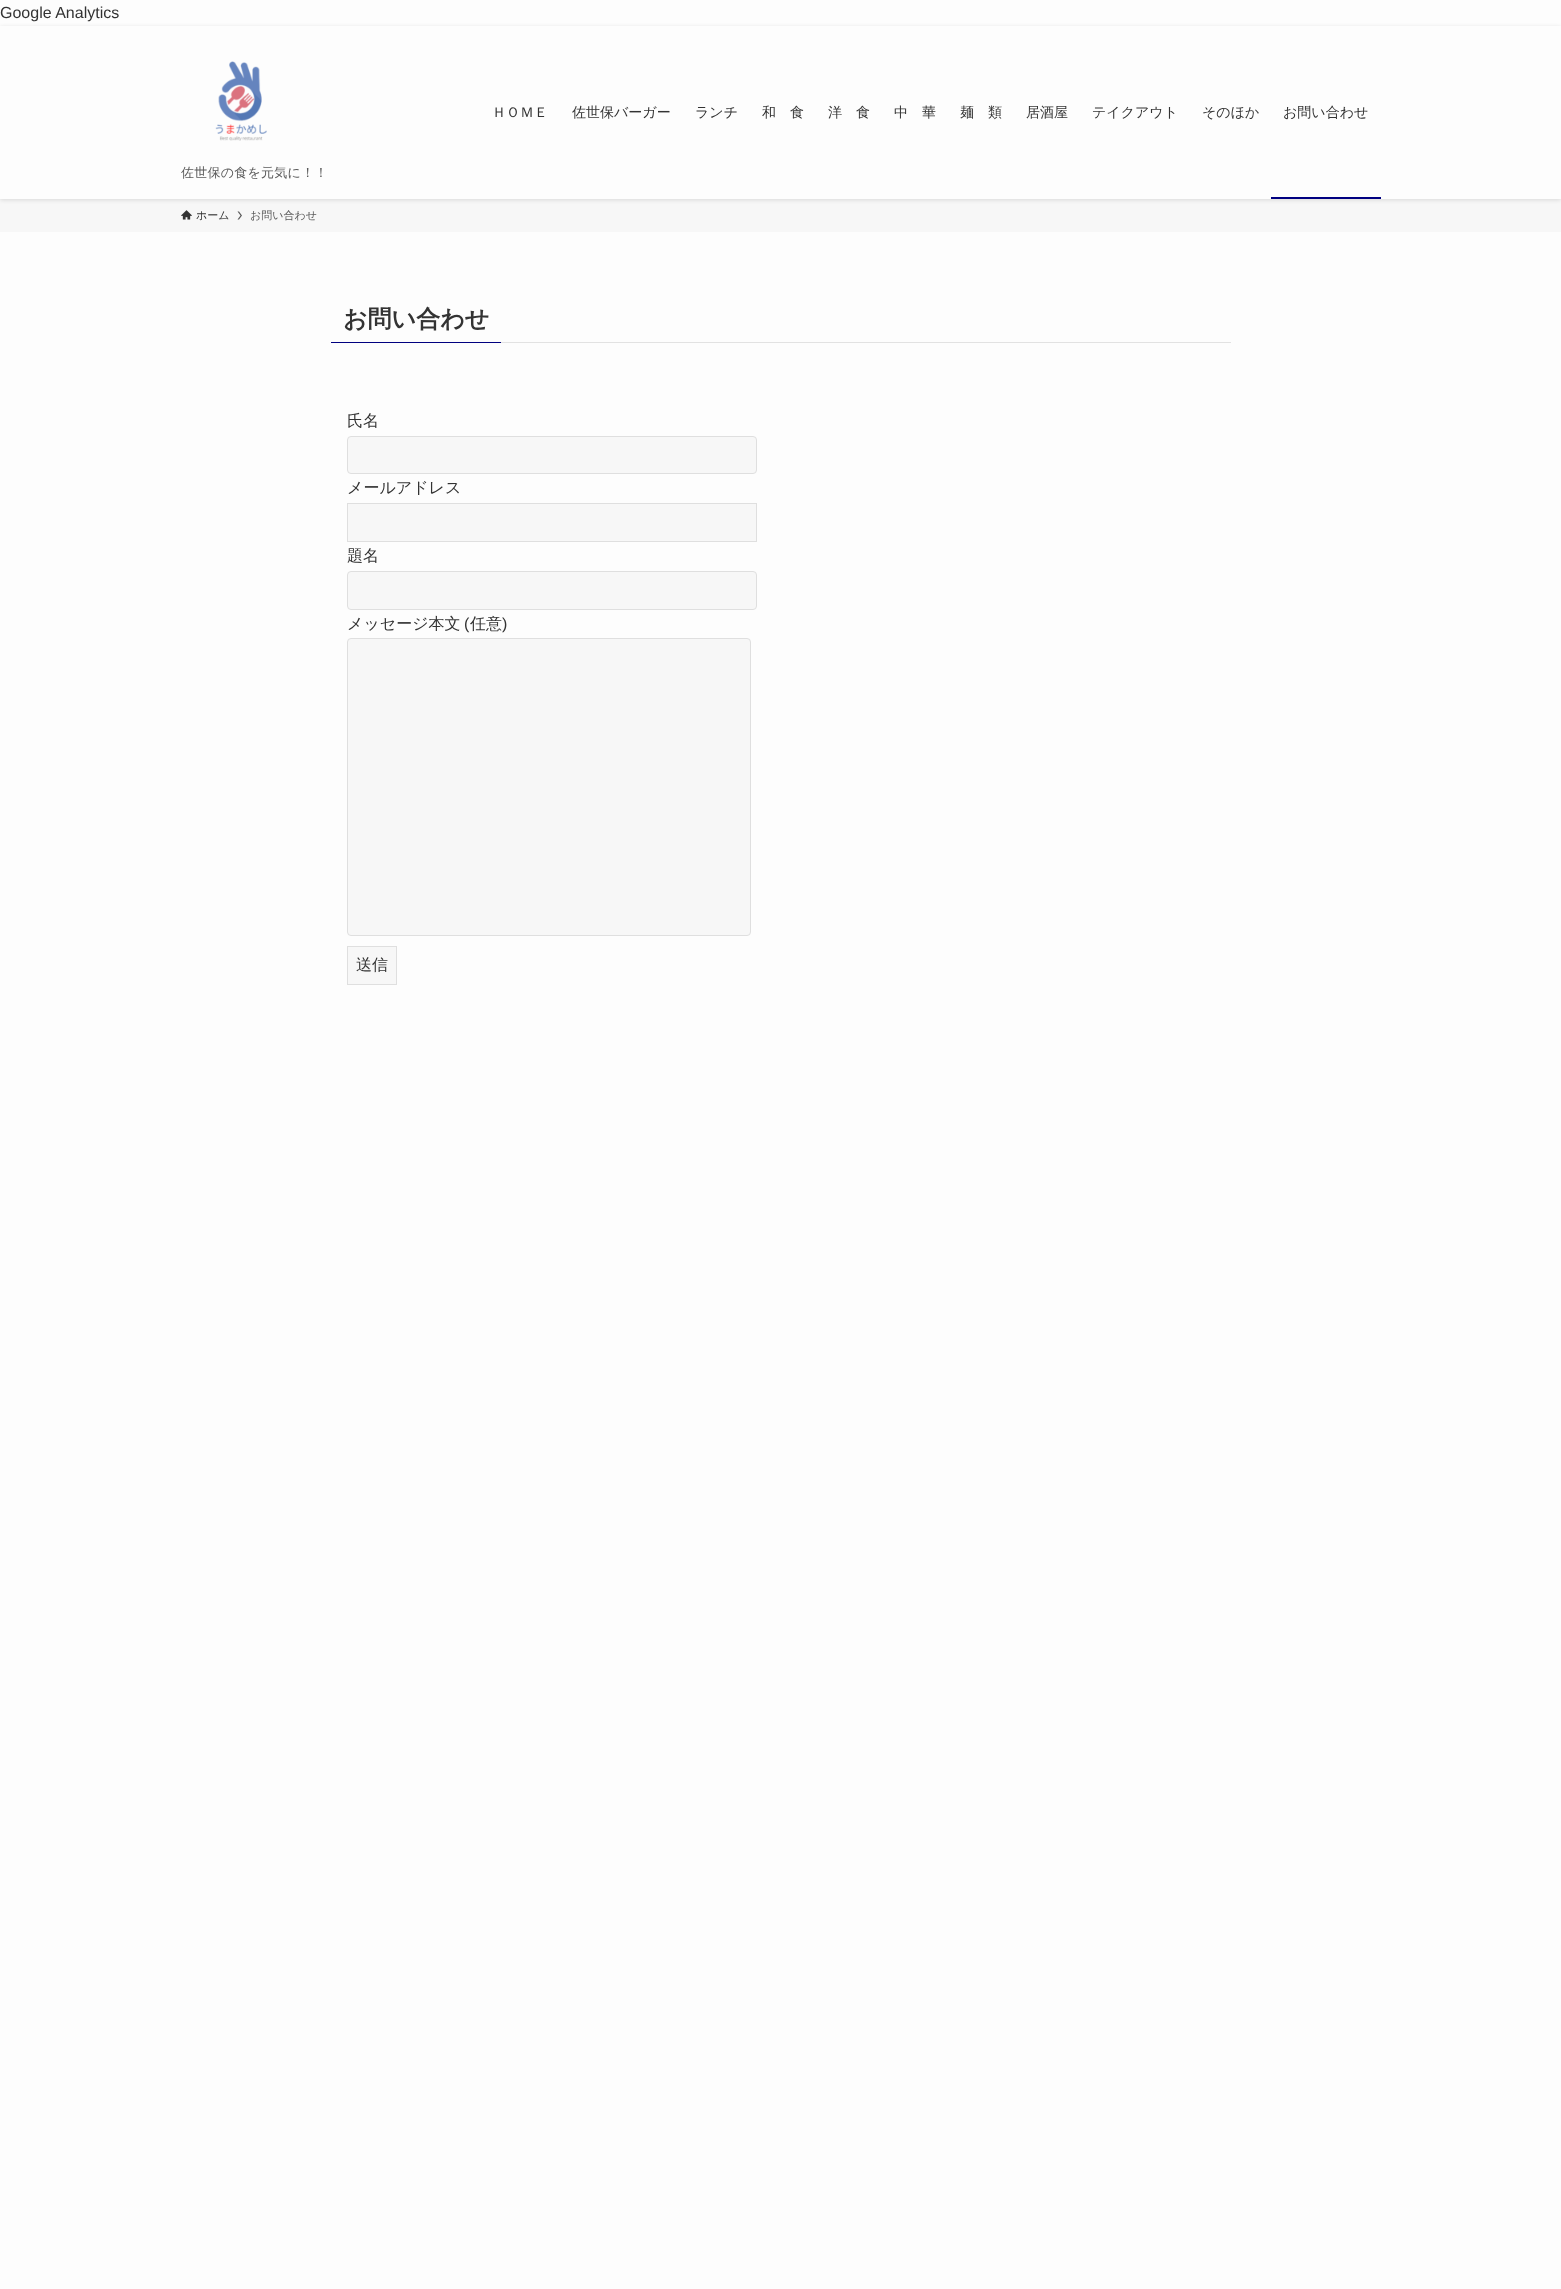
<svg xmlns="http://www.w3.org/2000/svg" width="1561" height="2289">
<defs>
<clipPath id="clip1"><path d="M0 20h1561v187h-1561zm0 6h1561v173h-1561z" clip-rule="evenodd"/></clipPath>
</defs>
<rect width="100%" height="100%" fill="#fdfdfd"/>
<text x="0" y="18" style="font-family:Liberation Sans;font-size:16px;fill:#333">Google Analytics</text>
<rect y="199" width="1561" height="33" fill="#f7f7f7"/>
<g clip-path="url(#clip1)">
<rect y="27" width="1561" height="173" fill="#0000001f" filter="blur(2px)"/>
</g>
<text x="492" y="117" style="font-family:WenQuanYi Zen Hei;font-size:14px;font-weight:500;fill:#333">ＨＯＭＥ</text>
<text x="572" y="117" style="font-family:WenQuanYi Zen Hei;font-size:14px;font-weight:500;fill:#333">佐世保バーガー</text>
<text x="695" y="117" style="font-family:WenQuanYi Zen Hei;font-size:14px;font-weight:500;fill:#333">ランチ</text>
<text x="762" y="117" style="font-family:WenQuanYi Zen Hei;font-size:14px;font-weight:500;fill:#333">和　食</text>
<text x="828" y="117" style="font-family:WenQuanYi Zen Hei;font-size:14px;font-weight:500;fill:#333">洋　食</text>
<text x="894" y="117" style="font-family:WenQuanYi Zen Hei;font-size:14px;font-weight:500;fill:#333">中　華</text>
<text x="960" y="117" style="font-family:WenQuanYi Zen Hei;font-size:14px;font-weight:500;fill:#333">麺　類</text>
<text x="1026" y="117" style="font-family:WenQuanYi Zen Hei;font-size:14px;font-weight:500;fill:#333">居酒屋</text>
<text x="1092" y="117" style="font-family:WenQuanYi Zen Hei;font-size:14px;font-weight:500;fill:#333">テイクアウト</text>
<text x="1202" y="117" style="font-family:WenQuanYi Zen Hei;font-size:14px;font-weight:500;fill:#333">そのほか</text>
<text x="1283" y="117" style="font-family:WenQuanYi Zen Hei;font-size:14px;font-weight:500;fill:#333">お問い合わせ</text>
<rect x="1271" y="197" width="110" height="2" fill="#000080"/>
<image x="215" y="61" width="52" height="80" href="media/1.png"/>
<text x="181" y="177" style="font-family:WenQuanYi Zen Hei;font-size:13px;font-weight:500;letter-spacing:0.25px;fill:#5a5a5a">佐世保の食を元気に！！</text>
<image x="181" y="210" width="11" height="10" href="media/2.png"/>
<text x="196" y="219" style="font-family:WenQuanYi Zen Hei;font-size:11px;font-weight:500;fill:#333">ホーム</text>
<path d="M239 211.5h-1.5l3 4l-3 4h1.5l3-4z" fill="#5a5a5a"/>
<text x="250" y="219" style="font-family:WenQuanYi Zen Hei;font-size:11px;font-weight:500;fill:#5a5a5a">お問い合わせ</text>
<rect x="501" y="342" width="730" height="1" fill="#e2e2e2"/>
<rect x="331" y="342" width="170" height="1" fill="#000080"/>
<text x="343" y="327" style="font-family:WenQuanYi Zen Hei;font-size:24px;font-weight:bold;fill:#333">お問い合わせ</text>
<text x="347" y="426" style="font-family:WenQuanYi Zen Hei;font-size:16px;font-weight:500;fill:#333">氏名</text>
<rect x="347.5" y="436.5" width="409" height="37" rx="3.5" fill="#f7f7f7" stroke="#dfdfdf"/>
<text x="347" y="493" style="font-family:WenQuanYi Zen Hei;font-size:16px;font-weight:500;fill:#333">メールアドレス</text>
<rect x="347.5" y="503.5" width="409" height="38" fill="#f7f7f7" stroke="#dfdfdf"/>
<text x="347" y="561" style="font-family:WenQuanYi Zen Hei;font-size:16px;font-weight:500;fill:#333">題名</text>
<rect x="347.5" y="571.5" width="409" height="38" rx="3.5" fill="#f7f7f7" stroke="#dfdfdf"/>
<text x="347" y="629" style="font-family:WenQuanYi Zen Hei;font-size:16px;font-weight:500;fill:#333">メッセージ本文</text>
<text x="464" y="629" style="font-family:Liberation Sans;font-size:16px;fill:#333">(</text>
<text x="470" y="629" style="font-family:WenQuanYi Zen Hei;font-size:16px;font-weight:500;fill:#333">任意</text>
<text x="502" y="629" style="font-family:Liberation Sans;font-size:16px;fill:#333">)</text>
<rect x="347.5" y="638.5" width="403" height="297" rx="3.5" fill="#f7f7f7" stroke="#dfdfdf"/>
<rect x="347.5" y="946.5" width="49" height="38" fill="#f7f7f7" stroke="#dfdfdf"/>
<text x="356" y="970" style="font-family:WenQuanYi Zen Hei;font-size:16px;font-weight:500;fill:#333">送信</text>
</svg>
